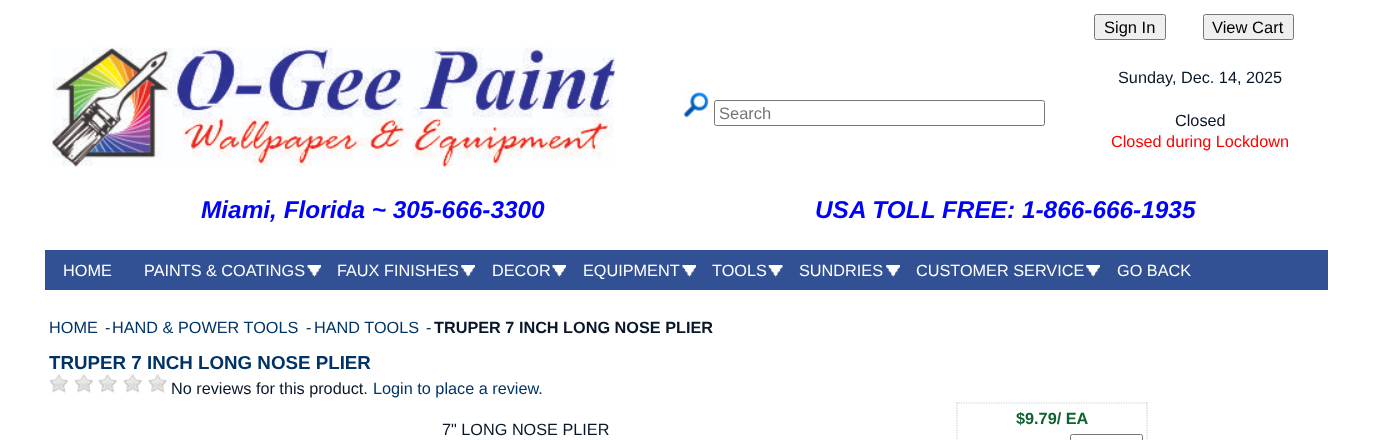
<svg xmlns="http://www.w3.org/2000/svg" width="1377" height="440">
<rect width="100%" height="100%" fill="#fff"/>
<rect x="1094.5" y="14.5" width="71" height="25" rx="2" fill="#efefef" stroke="#767676"/>
<text x="1104" y="33" style="font-family:Liberation Sans;font-size:16.5px;fill:#000">Sign In</text>
<rect x="1203.5" y="14.5" width="90" height="25" rx="2" fill="#efefef" stroke="#767676"/>
<text x="1212" y="33" style="font-family:Liberation Sans;font-size:16.5px;fill:#000">View Cart</text>
<image x="52" y="47" width="563" height="120" href="media/1.png"/>
<image x="683" y="92" width="26" height="26" href="media/2.png"/>
<rect x="714.5" y="100.5" width="330" height="25" rx="2" fill="none" stroke="#767676"/>
<text x="719" y="119" style="font-family:Liberation Sans;font-size:16.5px;fill:#757575">Search</text>
<text x="1118" y="83" style="font-family:Liberation Sans;font-size:16.25px;fill:#081829">Sunday, Dec. 14, 2025</text>
<text x="1175" y="126" style="font-family:Liberation Sans;font-size:16.25px;fill:#081829">Closed</text>
<text x="1111" y="147" style="font-family:Liberation Sans;font-size:16.25px;fill:#f00">Closed during Lockdown</text>
<text x="201" y="218" style="font-family:Liberation Sans;font-size:24.4px;font-weight:bold;font-style:italic;fill:#00f">Miami, Florida ~ 305-666-3300</text>
<text x="815" y="218" style="font-family:Liberation Sans;font-size:24.4px;font-weight:bold;font-style:italic;fill:#00f">USA TOLL FREE: 1-866-666-1935</text>
<rect x="45" y="250" width="1283" height="40" fill="#325094"/>
<text x="63" y="276" style="font-family:Liberation Sans;font-size:16.25px;fill:#fff">HOME</text>
<image x="307" y="265" width="14" height="12" href="media/3.png"/>
<text x="144" y="276" style="font-family:Liberation Sans;font-size:16.25px;fill:#fff">PAINTS &amp; COATINGS</text>
<image x="461" y="265" width="14" height="12" href="media/4.png"/>
<text x="337" y="276" style="font-family:Liberation Sans;font-size:16.25px;fill:#fff">FAUX FINISHES</text>
<image x="552" y="265" width="14" height="12" href="media/5.png"/>
<text x="492" y="276" style="font-family:Liberation Sans;font-size:16.25px;fill:#fff">DECOR</text>
<image x="682" y="265" width="14" height="12" href="media/3.png"/>
<text x="583" y="276" style="font-family:Liberation Sans;font-size:16.25px;fill:#fff">EQUIPMENT</text>
<image x="768" y="265" width="15" height="12" href="media/6.png"/>
<text x="712" y="276" style="font-family:Liberation Sans;font-size:16.25px;fill:#fff">TOOLS</text>
<image x="886" y="265" width="14" height="12" href="media/4.png"/>
<text x="799" y="276" style="font-family:Liberation Sans;font-size:16.25px;fill:#fff">SUNDRIES</text>
<image x="1086" y="265" width="14" height="12" href="media/4.png"/>
<text x="916" y="276" style="font-family:Liberation Sans;font-size:16.25px;fill:#fff">CUSTOMER SERVICE</text>
<text x="1117" y="276" style="font-family:Liberation Sans;font-size:16.25px;fill:#fff">GO BACK</text>
<text x="49" y="333" style="font-family:Liberation Sans;font-size:16.25px;fill:#036">HOME</text>
<text x="105" y="333" style="font-family:Liberation Sans;font-size:16.25px;fill:#036">-</text>
<text x="112" y="333" style="font-family:Liberation Sans;font-size:16.25px;fill:#036">HAND &amp; POWER TOOLS</text>
<text x="306" y="333" style="font-family:Liberation Sans;font-size:16.25px;fill:#036">-</text>
<text x="314" y="333" style="font-family:Liberation Sans;font-size:16.25px;fill:#036">HAND TOOLS</text>
<text x="426" y="333" style="font-family:Liberation Sans;font-size:16.25px;fill:#036">-</text>
<text x="434" y="333" style="font-family:Liberation Sans;font-size:16.25px;font-weight:bold;fill:#081829">TRUPER 7 INCH LONG NOSE PLIER</text>
<text x="49" y="369" style="font-family:Liberation Sans;font-size:18.75px;font-weight:bold;fill:#036">TRUPER 7 INCH LONG NOSE PLIER</text>
<image x="49" y="374" width="20" height="19" href="media/7.png"/>
<image x="74" y="374" width="20" height="19" href="media/7.png"/>
<image x="98" y="374" width="20" height="19" href="media/8.png"/>
<image x="123" y="374" width="20" height="19" href="media/8.png"/>
<image x="148" y="374" width="20" height="19" href="media/8.png"/>
<text x="171" y="394" style="font-family:Liberation Sans;font-size:16.25px;fill:#081829">No reviews for this product.</text>
<text x="373" y="394" style="font-family:Liberation Sans;font-size:16.25px;fill:#036">Login to place a review.</text>
<path d="M956 403h191.5" fill="none" stroke="#ccc" stroke-width="1.2" stroke-dasharray="1.25 1.25"/>
<path d="M1147 402.5v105" fill="none" stroke="#ccc" stroke-width="1.2" stroke-dasharray="1.25 1.25"/>
<path d="M957 402.5v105" fill="none" stroke="#ccc" stroke-width="1.2" stroke-dasharray="1.25 1.25"/>
<text x="1016" y="424" style="font-family:Liberation Sans;font-size:16.25px;font-weight:bold;fill:#0f6330">$9.79/ EA</text>
<rect x="1070.5" y="434.5" width="72" height="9" rx="2" fill="none" stroke="#767676"/>
<text x="442" y="435" style="font-family:Liberation Sans;font-size:16.25px;fill:#081829">7" LONG NOSE PLIER</text>
</svg>
